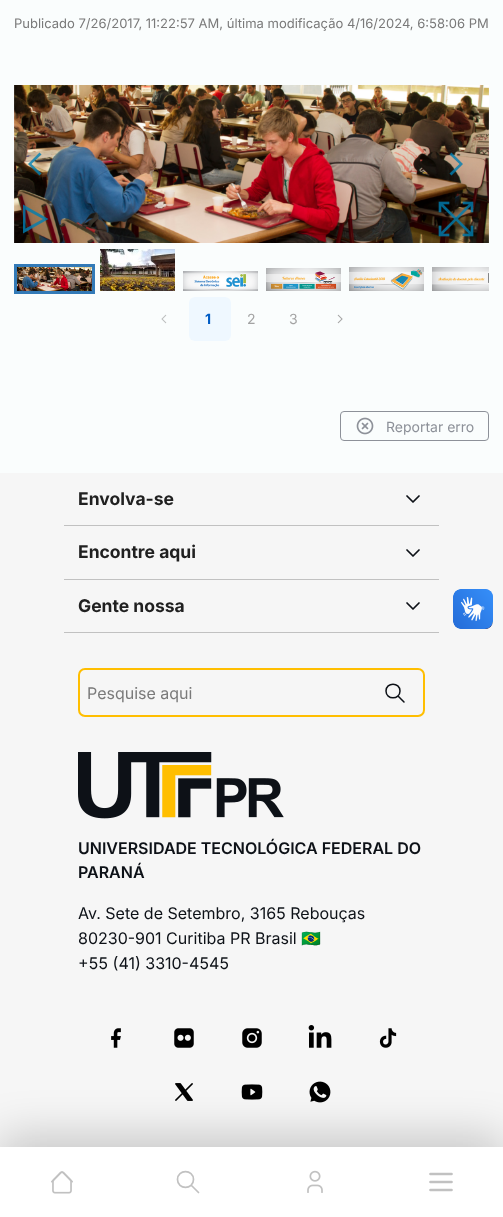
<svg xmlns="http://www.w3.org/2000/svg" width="503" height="1217">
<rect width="100%" height="100%" fill="#fafdfd"/>
<text x="14" y="28" style="font-family:Inter;font-size:13px;fill:#7a7a7a">Publicado 7/26/2017, 11:22:57 AM, última modificação 4/16/2024, 6:58:06 PM</text>
<image x="14" y="85" width="475" height="158" href="media/1.png"/>
<path d="M39.5 152.5l2 2l-10 9.5l10 9.5l-2 2l-11.5-11.5z" fill="#007eb1cc" fill-rule="evenodd"/>
<path d="M451.5 175.5l-2-2l10-9.5l-10-9.5l2-2l11.5 11.5z" fill="#007eb1cc" fill-rule="evenodd"/>
<path d="M25.5 209.5v19l17.5-9.5zm-2.5 24v-29l25.5 14.5z" fill="#007eb1cc" fill-rule="evenodd"/>
<image x="438" y="201" width="36" height="36" href="media/2.png"/>
<rect x="15.5" y="265.5" width="78" height="27" fill="none" stroke="#337ab7" stroke-width="3"/>
<image x="17" y="267" width="75" height="24" href="media/3.png"/>
<image x="100" y="249" width="75" height="42" href="media/4.png"/>
<image x="183" y="271" width="75" height="20" href="media/5.png"/>
<image x="266" y="268" width="75" height="23" href="media/6.png"/>
<image x="349" y="267" width="75" height="24" href="media/7.png"/>
<image x="432" y="267" width="57" height="24" href="media/8.png"/>
<image x="161" y="314" width="6" height="10" href="media/9.png"/>
<rect x="189" y="297" width="42" height="44" rx="6" fill="#eff8ff"/>
<text x="205" y="324" style="font-family:Inter;font-size:14px;font-weight:bold;fill:#005dc5">1</text>
<text x="247" y="324" style="font-family:Inter;font-size:14px;fill:#a3a3a3">2</text>
<text x="289" y="324" style="font-family:Inter;font-size:14px;fill:#a3a3a3">3</text>
<image x="337" y="314" width="6" height="10" href="media/10.png"/>
<rect x="340.5" y="411.5" width="148" height="29" rx="3.5" fill="none" stroke="#8d9199"/>
<image x="356" y="417" width="18" height="18" href="media/11.png"/>
<text x="386" y="432" style="font-family:Inter;font-size:14px;fill:#8d9199">Reportar erro</text>
<rect y="473" width="503" height="674" fill="#f6f6f6"/>
<rect x="64" y="525" width="375" height="1" fill="#c1c1c1"/>
<text x="78" y="505" style="font-family:Inter;font-size:17.5px;font-weight:bold;fill:#202020">Envolva-se</text>
<path d="M407 496l6 6l6-6m-12 54l6 6l6-6" fill="none" stroke="#0d1117" stroke-width="1.7" stroke-linecap="round" stroke-linejoin="round"/>
<rect x="64" y="579" width="375" height="1" fill="#c1c1c1"/>
<text x="78" y="558" style="font-family:Inter;font-size:17.5px;font-weight:bold;fill:#202020">Encontre aqui</text>
<rect x="64" y="632" width="375" height="1" fill="#c1c1c1"/>
<text x="78" y="612" style="font-family:Inter;font-size:17.5px;font-weight:bold;fill:#202020">Gente nossa</text>
<path d="M407 603l6 6l6-6" fill="none" stroke="#0d1117" stroke-width="1.7" stroke-linecap="round" stroke-linejoin="round"/>
<rect x="79" y="669" width="345" height="47" rx="6" fill="none" stroke="#ffbe00" stroke-width="2"/>
<text x="87" y="699" style="font-family:Inter;font-size:16px;fill:#7a7a7a">Pesquise aqui</text>
<path d="M404 702l-6-6m-12-5c0 9 14 9 14 0c0-9-14-9-14 0z" fill="none" stroke="#0d1117" stroke-width="1.5" stroke-linecap="round" stroke-linejoin="round"/>
<image x="78" y="752" width="206" height="67" href="media/12.png"/>
<text x="78" y="854" style="font-family:Inter;font-size:16px;font-weight:600;fill:#0d1117">UNIVERSIDADE TECNOLÓGICA FEDERAL DO</text>
<text x="78" y="878" style="font-family:Inter;font-size:16px;font-weight:600;fill:#0d1117">PARANÁ</text>
<text x="78" y="919" style="font-family:Inter;font-size:16px;fill:#0d1117">Av. Sete de Setembro, 3165 Rebouças</text>
<text x="78" y="944" style="font-family:Inter;font-size:16px;fill:#0d1117">80230-901 Curitiba PR Brasil</text>
<text x="301" y="944" style="font-family:Noto Color Emoji;font-size:16px;fill:#0d1117">🇧🇷</text>
<text x="78" y="969" style="font-family:Inter;font-size:16px;fill:#0d1117">+55 (41) 3310-4545</text>
<image x="111" y="1028" width="10" height="20" href="media/13.png"/>
<image x="174" y="1028" width="20" height="20" href="media/14.png"/>
<image x="242" y="1028" width="20" height="20" href="media/15.png"/>
<image x="308" y="1025" width="24" height="23" href="media/16.png"/>
<image x="379" y="1028" width="18" height="20" href="media/17.png"/>
<image x="175" y="1083" width="18" height="18" href="media/18.png"/>
<image x="241" y="1084" width="22" height="16" href="media/19.png"/>
<image x="309" y="1081" width="22" height="22" href="media/20.png"/>
<rect y="1137" width="503" height="70" fill="#00000033" filter="blur(22.5px)"/>
<rect y="1147" width="503" height="70" fill="#fff"/>
<image x="51" y="1171" width="22" height="23" href="media/21.png"/>
<path d="M198.5 1192.5l-7-7m-14-6c0 10.5 16 10.5 16 0c0-10.5-16-10.5-16 0z" fill="none" stroke="#c1c1c1" stroke-width="1.7" stroke-linecap="round" stroke-linejoin="round"/>
<image x="307" y="1170" width="16" height="23" href="media/22.png"/>
<path d="M430.5 1190h21m-21-8h21m-21-8h21" fill="none" stroke="#c1c1c1" stroke-width="2.7" stroke-linecap="round"/>
<image x="453" y="589" width="40" height="40" href="media/23.png"/>
<image x="453" y="589" width="40" height="40" href="media/24.png"/>
</svg>
